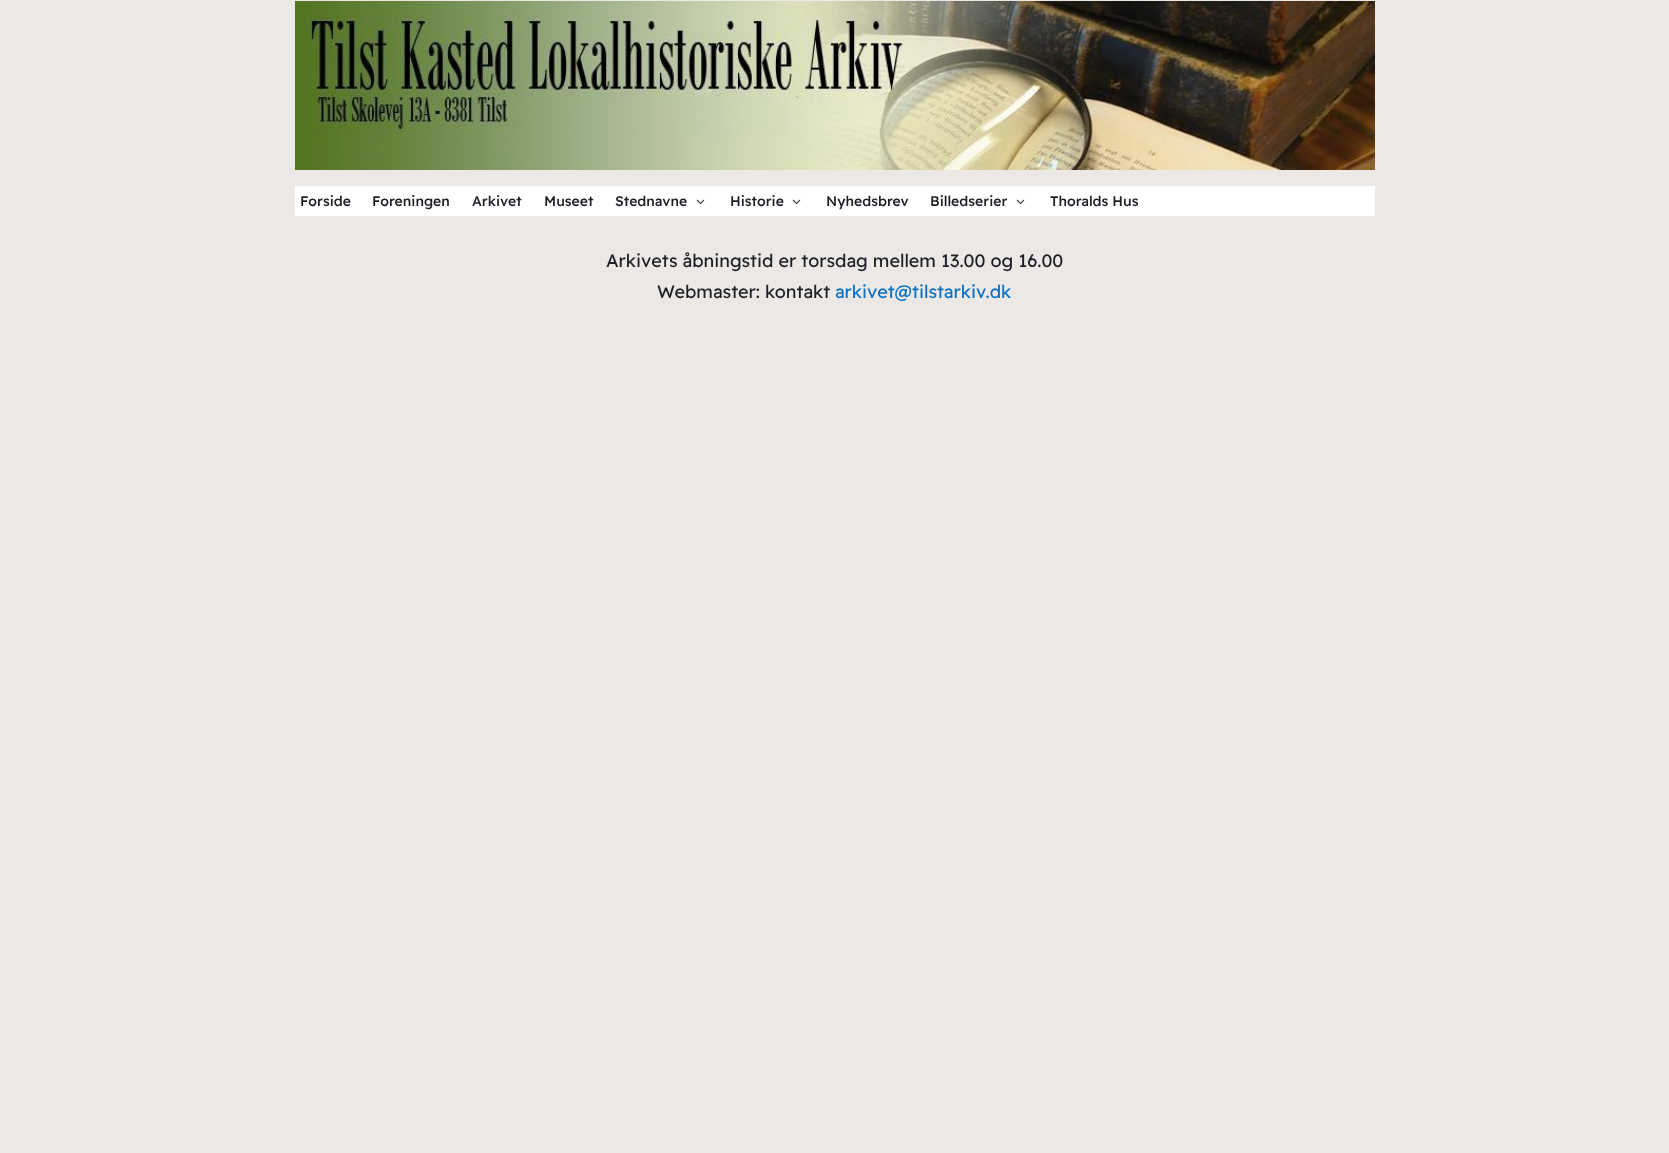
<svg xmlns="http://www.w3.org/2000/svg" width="1669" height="1153">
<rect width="100%" height="100%" fill="#ebe8e6"/>
<image x="295" y="1" width="1080" height="169" href="media/1.png"/>
<rect x="295" y="186" width="1080" height="30" fill="#fff"/>
<text x="300" y="206" style="font-family:Readex Pro;font-size:14px;font-weight:500;fill:#1d1f25">Forside</text>
<text x="372" y="206" style="font-family:Readex Pro;font-size:14px;font-weight:500;fill:#1d1f25">Foreningen</text>
<text x="472" y="206" style="font-family:Readex Pro;font-size:14px;font-weight:500;fill:#1d1f25">Arkivet</text>
<text x="544" y="206" style="font-family:Readex Pro;font-size:14px;font-weight:500;fill:#1d1f25">Museet</text>
<text x="615" y="206" style="font-family:Readex Pro;font-size:14px;font-weight:500;fill:#1d1f25">Stednavne</text>
<image x="696" y="199" width="9" height="5" href="media/2.png"/>
<text x="730" y="206" style="font-family:Readex Pro;font-size:14px;font-weight:500;fill:#1d1f25">Historie</text>
<image x="792" y="199" width="9" height="5" href="media/2.png"/>
<text x="826" y="206" style="font-family:Readex Pro;font-size:14px;font-weight:500;fill:#1d1f25">Nyhedsbrev</text>
<text x="930" y="206" style="font-family:Readex Pro;font-size:14px;font-weight:500;fill:#1d1f25">Billedserier</text>
<image x="1016" y="199" width="9" height="5" href="media/2.png"/>
<text x="1050" y="206" style="font-family:Readex Pro;font-size:14px;font-weight:500;fill:#1d1f25">Thoralds Hus</text>
<text x="606" y="267" style="font-family:Readex Pro;font-size:18px;fill:#1d1f25">Arkivets åbningstid er torsdag mellem 13.00 og 16.00</text>
<text x="657" y="298" style="font-family:Readex Pro;font-size:18px;fill:#1d1f25">Webmaster: kontakt</text>
<text x="835" y="298" style="font-family:Readex Pro;font-size:18px;fill:#0c71c3">arkivet@tilstarkiv.dk</text>
</svg>
